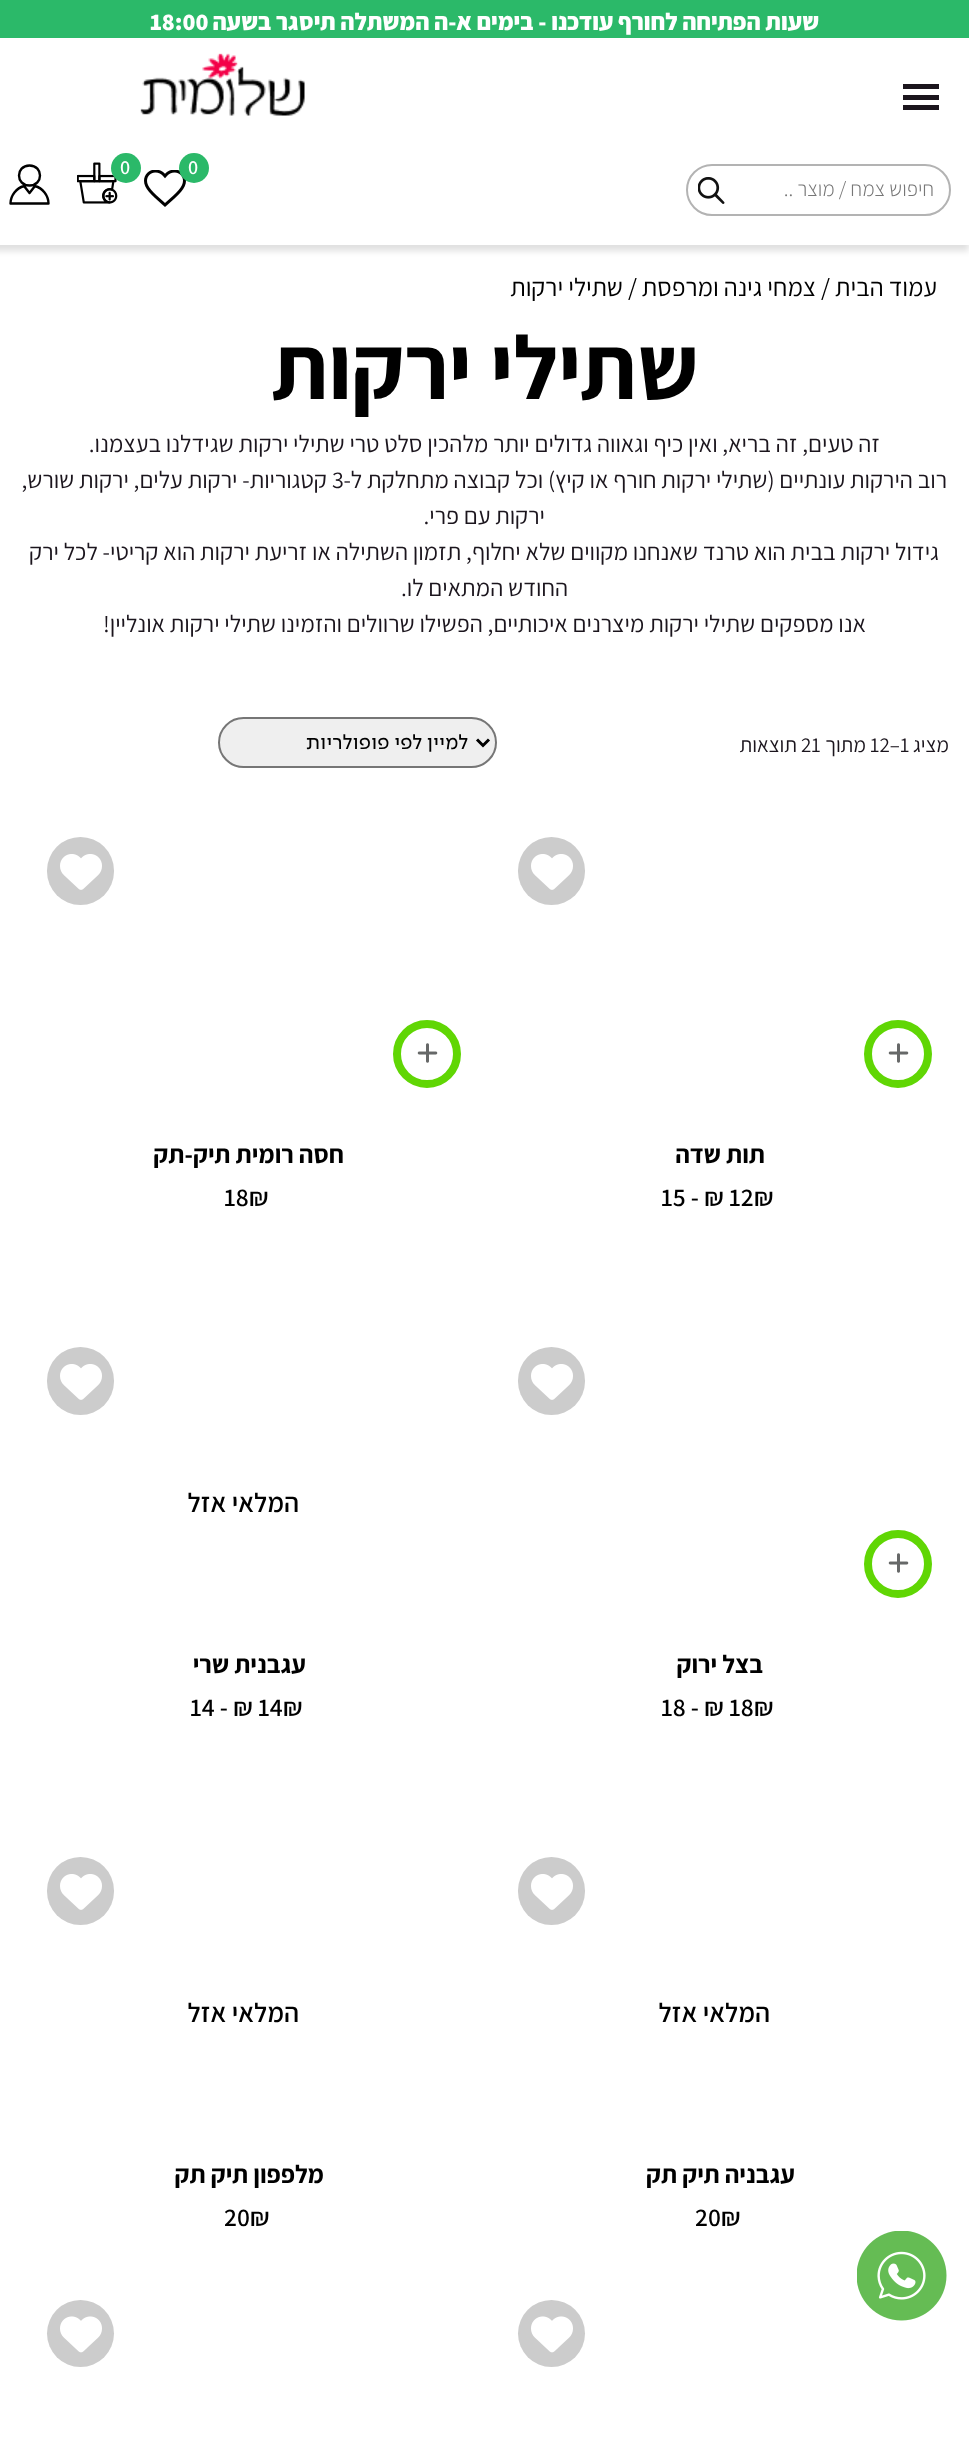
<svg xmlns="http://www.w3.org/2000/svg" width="969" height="2455">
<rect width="100%" height="100%" fill="#fff"/>
<rect width="969" height="38" fill="#2bb969"/>
<text x="819" y="30" style="font-family:Assistant;font-size:24px;font-weight:800;direction:rtl;fill:#fff">שעות הפתיחה לחורף עודכנו - בימים א-ה המשתלה תיסגר בשעה</text>
<text x="150" y="30" style="font-family:Assistant;font-size:24px;font-weight:800;fill:#fff">18:00</text>
<rect x="-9" y="44" width="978" height="207" fill="#0000001f" filter="blur(3px)"/>
<rect y="40" width="969" height="205" fill="#fff"/>
<rect x="903" y="95" width="36" height="5" fill="#1b151d"/>
<rect x="903" y="84" width="36" height="5" fill="#1b151d"/>
<rect x="903" y="105" width="36" height="5" fill="#1b151d"/>
<image x="140" y="53" width="165" height="63" href="media/1.png"/>
<image x="144" y="170" width="42" height="37" href="media/2.png"/>
<circle cx="194" cy="168" r="15" fill="#2bb969"/>
<text x="188" y="174" style="font-family:Assistant;font-size:20px;font-weight:600;fill:#fff">0</text>
<image x="77" y="162" width="41" height="42" href="media/3.png"/>
<circle cx="126" cy="168" r="15" fill="#2bb969"/>
<text x="120" y="174" style="font-family:Assistant;font-size:20px;font-weight:600;fill:#fff">0</text>
<path d="M29.5 185.5c14 0 14-20 0-20c-14 0-14 20 0 20zm0 7.5l5.5-7c7.5 2 13.5 9.5 13.5 17.5h-38c0-8 6-15.5 13.5-17.5z" fill="none" stroke="#000" stroke-width="2.4" stroke-linecap="round" stroke-linejoin="round"/>
<rect x="687" y="165" width="263" height="50" rx="25" fill="none" stroke="#b3b3b3" stroke-width="2"/>
<text x="934" y="196" style="font-family:Assistant;font-size:21px;font-weight:300;direction:rtl;fill:#777">חיפוש צמח / מוצר ..</text>
<image x="698" y="177" width="27" height="27" href="media/4.png"/>
<text x="937" y="296" style="font-family:Assistant;font-size:25.5px;direction:rtl;fill:#000">עמוד הבית</text>
<text x="821" y="296" style="font-family:Assistant;font-size:25.5px;fill:#000">/</text>
<text x="816" y="296" style="font-family:Assistant;font-size:25.5px;direction:rtl;fill:#000">צמחי גינה ומרפסת</text>
<text x="637" y="296" style="font-family:Assistant;font-size:25.5px;direction:rtl;fill:#000">/ שתילי ירקות</text>
<text x="698" y="399" style="font-family:Assistant;font-size:90px;font-weight:bold;direction:rtl;fill:#000">שתילי ירקות</text>
<text x="880" y="452" style="font-family:Assistant;font-size:24px;direction:rtl;fill:#1b151d">זה טעים, זה בריא, ואין כיף וגאווה גדולים יותר מלהכין סלט טרי שתילי ירקות שגידלנו בעצמנו.</text>
<text x="947" y="488" style="font-family:Assistant;font-size:24px;direction:rtl;fill:#1b151d">רוב הירקות עונתיים (שתילי ירקות חורף או קיץ) וכל קבוצה מתחלקת ל-</text>
<text x="332" y="488" style="font-family:Assistant;font-size:24px;fill:#1b151d">3</text>
<text x="327" y="488" style="font-family:Assistant;font-size:24px;direction:rtl;fill:#1b151d">קטגוריות- ירקות עלים, ירקות שורש,</text>
<text x="545" y="524" style="font-family:Assistant;font-size:24px;direction:rtl;fill:#1b151d">ירקות עם פרי.</text>
<text x="939" y="560" style="font-family:Assistant;font-size:24px;direction:rtl;fill:#1b151d">גידול ירקות בבית הוא טרנד שאנחנו מקווים שלא יחלוף, תזמון השתילה או זריעת ירקות הוא קריטי- לכל ירק</text>
<text x="568" y="596" style="font-family:Assistant;font-size:24px;direction:rtl;fill:#1b151d">החודש המתאים לו.</text>
<text x="866" y="632" style="font-family:Assistant;font-size:24px;direction:rtl;fill:#1b151d">אנו מספקים שתילי ירקות מיצרנים איכותיים, הפשילו שרוולים והזמינו שתילי ירקות אונליין!</text>
<text x="949" y="752" style="font-family:Assistant;font-size:21px;direction:rtl;fill:#1b151d">מציג</text>
<text x="870" y="752" style="font-family:Assistant;font-size:21px;fill:#1b151d">12–1</text>
<text x="866" y="752" style="font-family:Assistant;font-size:21px;direction:rtl;fill:#1b151d">מתוך</text>
<text x="801" y="752" style="font-family:Assistant;font-size:21px;fill:#1b151d">21</text>
<text x="797" y="752" style="font-family:Assistant;font-size:21px;direction:rtl;fill:#1b151d">תוצאות</text>
<rect x="219" y="718" width="277" height="49" rx="24.5" fill="#efefef" stroke="#767676" stroke-width="2"/>
<path d="M477 739.5l6 6l6-6" fill="none" stroke="#000" stroke-width="3"/>
<text x="468" y="749" style="font-family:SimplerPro;font-size:21px;direction:rtl;fill:#000">למיין לפי פופולריות</text>
<rect x="518" y="837" width="67" height="68" rx="33.5" fill="#ccc"/>
<image x="531" y="854" width="42" height="36" href="media/5.png"/>
<circle cx="898" cy="1054" r="30" fill="none" stroke="#60d604" stroke-width="8"/>
<image x="888" y="1043" width="21" height="20" href="media/6.png"/>
<text x="765" y="1163" style="font-family:Assistant;font-size:25.5px;font-weight:bold;direction:rtl;fill:#000">תות שדה</text>
<text x="661" y="1206" style="font-family:Assistant;font-size:25.5px;font-weight:600;fill:#000">15 - ₪ 12₪</text>
<rect x="47" y="837" width="67" height="68" rx="33.5" fill="#ccc"/>
<image x="60" y="854" width="42" height="36" href="media/5.png"/>
<circle cx="427" cy="1054" r="30" fill="none" stroke="#60d604" stroke-width="8"/>
<image x="417" y="1043" width="21" height="20" href="media/6.png"/>
<text x="344" y="1163" style="font-family:Assistant;font-size:25.5px;font-weight:bold;direction:rtl;fill:#000">חסה רומית תיק-תק</text>
<text x="224" y="1206" style="font-family:Assistant;font-size:25.5px;font-weight:600;fill:#000">18₪</text>
<rect x="518" y="1347" width="67" height="68" rx="33.5" fill="#ccc"/>
<image x="531" y="1364" width="42" height="36" href="media/5.png"/>
<circle cx="898" cy="1564" r="30" fill="none" stroke="#60d604" stroke-width="8"/>
<image x="888" y="1553" width="21" height="20" href="media/6.png"/>
<text x="763" y="1673" style="font-family:Assistant;font-size:25.5px;font-weight:bold;direction:rtl;fill:#000">בצל ירוק</text>
<text x="661" y="1716" style="font-family:Assistant;font-size:25.5px;font-weight:600;fill:#000">18 - ₪ 18₪</text>
<rect x="47" y="1347" width="67" height="68" rx="33.5" fill="#ccc"/>
<image x="60" y="1364" width="42" height="36" href="media/5.png"/>
<text x="299" y="1512" style="font-family:Assistant;font-size:27px;font-weight:600;direction:rtl;fill:#000">המלאי אזל</text>
<text x="306" y="1673" style="font-family:Assistant;font-size:25.5px;font-weight:bold;direction:rtl;fill:#000">עגבנית שרי</text>
<text x="190" y="1716" style="font-family:Assistant;font-size:25.5px;font-weight:600;fill:#000">14 - ₪ 14₪</text>
<rect x="518" y="1857" width="67" height="68" rx="33.5" fill="#ccc"/>
<image x="531" y="1874" width="42" height="36" href="media/5.png"/>
<text x="770" y="2022" style="font-family:Assistant;font-size:27px;font-weight:600;direction:rtl;fill:#000">המלאי אזל</text>
<text x="795" y="2183" style="font-family:Assistant;font-size:25.5px;font-weight:bold;direction:rtl;fill:#000">עגבניה תיק תק</text>
<text x="695" y="2226" style="font-family:Assistant;font-size:25.5px;font-weight:600;fill:#000">20₪</text>
<rect x="47" y="1857" width="67" height="68" rx="33.5" fill="#ccc"/>
<image x="60" y="1874" width="42" height="36" href="media/5.png"/>
<text x="299" y="2022" style="font-family:Assistant;font-size:27px;font-weight:600;direction:rtl;fill:#000">המלאי אזל</text>
<text x="324" y="2183" style="font-family:Assistant;font-size:25.5px;font-weight:bold;direction:rtl;fill:#000">מלפפון תיק תק</text>
<text x="224" y="2226" style="font-family:Assistant;font-size:25.5px;font-weight:600;fill:#000">20₪</text>
<circle cx="551.5" cy="2333.5" r="33.5" fill="#ccc"/>
<image x="531" y="2316" width="42" height="37" href="media/7.png"/>
<circle cx="80.5" cy="2333.5" r="33.5" fill="#ccc"/>
<image x="60" y="2316" width="42" height="37" href="media/7.png"/>
<image x="857" y="2231" width="90" height="90" href="media/8.png"/>
</svg>
